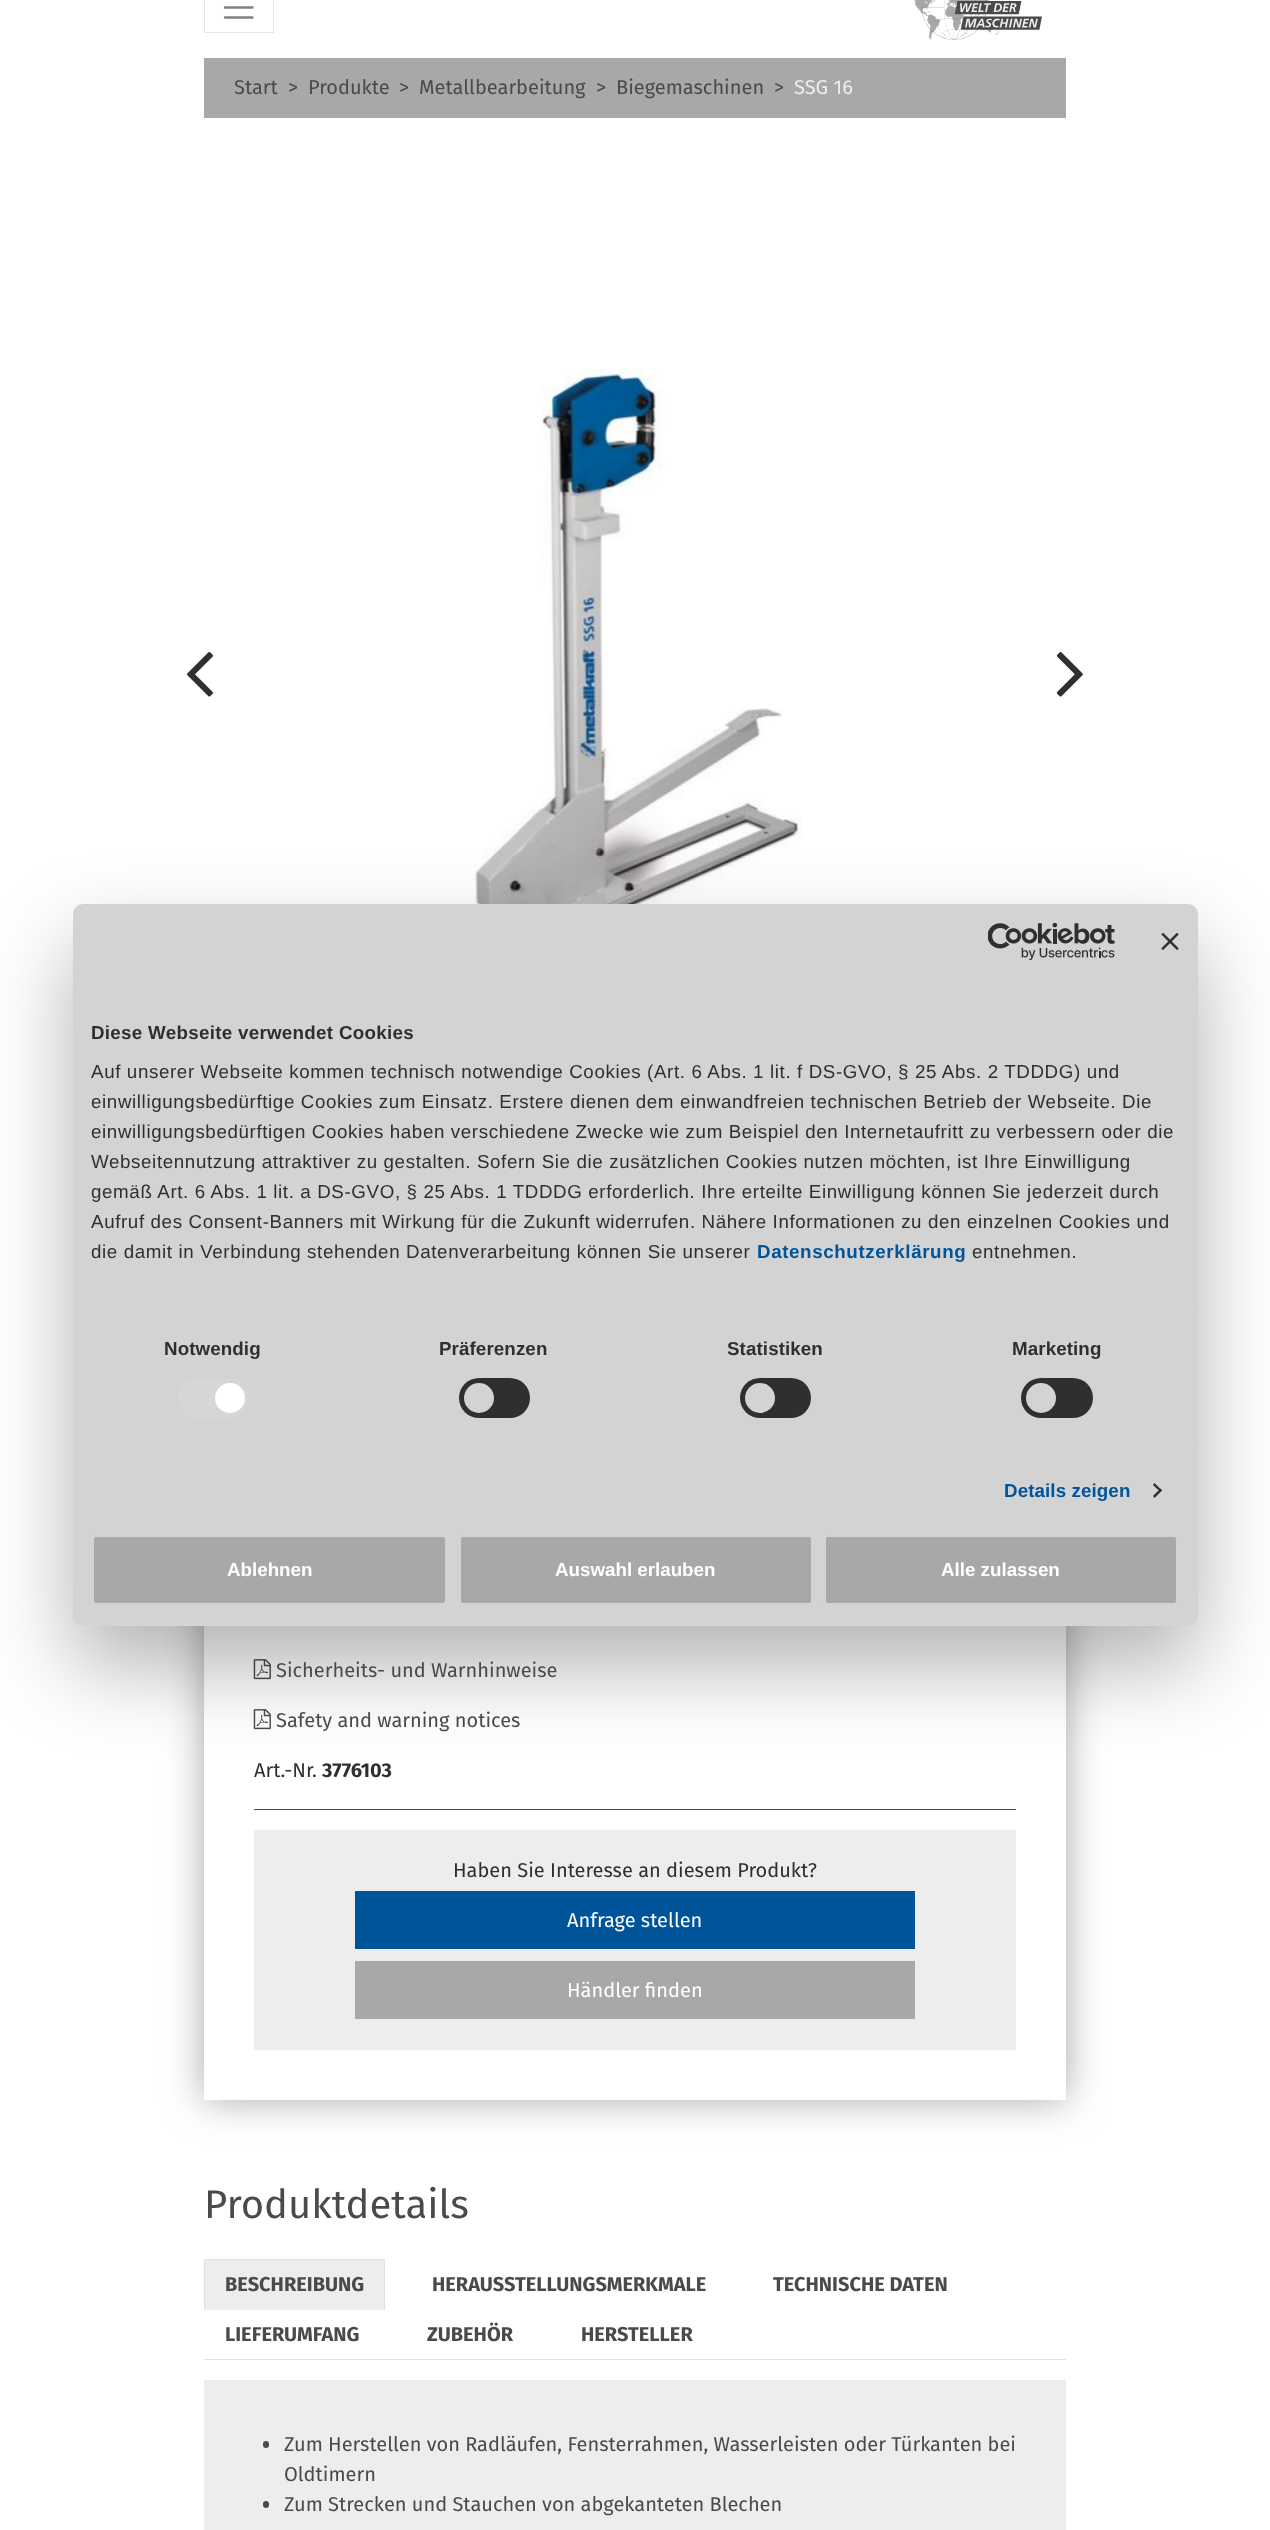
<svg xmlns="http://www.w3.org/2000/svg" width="1270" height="2530">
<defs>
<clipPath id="clip1"><path d="M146 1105h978v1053h-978zm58 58h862v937h-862z" clip-rule="evenodd"/></clipPath>
<clipPath id="clip2"><rect x="73" y="904" width="1125" height="722" rx="10"/></clipPath>
</defs>
<rect width="100%" height="100%" fill="#fff"/>
<rect x="204.5" y="-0.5" width="69" height="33" fill="none" stroke="#e6e6e6"/>
<path d="M225-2.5h27.5m-27.5 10h27.5m-27.5 10h27.5" fill="none" stroke="#808080" stroke-width="2.5" stroke-linecap="round"/>
<image x="914" y="0" width="128" height="40" href="media/1.png"/>
<rect x="204" y="58" width="862" height="60" fill="#a8a8a7"/>
<text x="234" y="94" style="font-family:Fira Sans;font-size:20px;fill:#4a4a49">Start</text>
<text x="288" y="94" style="font-family:Fira Sans;font-size:20px;fill:#4a4a49">&gt;</text>
<text x="308" y="94" style="font-family:Fira Sans;font-size:20px;fill:#4a4a49">Produkte</text>
<text x="399" y="94" style="font-family:Fira Sans;font-size:20px;fill:#4a4a49">&gt;</text>
<text x="419" y="94" style="font-family:Fira Sans;font-size:20px;fill:#4a4a49">Metallbearbeitung</text>
<text x="596" y="94" style="font-family:Fira Sans;font-size:20px;fill:#4a4a49">&gt;</text>
<text x="616" y="94" style="font-family:Fira Sans;font-size:20px;fill:#4a4a49">Biegemaschinen</text>
<text x="774" y="94" style="font-family:Fira Sans;font-size:20px;fill:#4a4a49">&gt;</text>
<text x="794" y="94" style="font-family:Fira Sans;font-size:20px;fill:#ededed">SSG 16</text>
<image x="474" y="368" width="328" height="536" href="media/5.png"/>
<g clip-path="url(#clip1)">
<rect x="204" y="1163" width="862" height="937" fill="#a8a8a7" filter="blur(19px)"/>
</g>
<image x="253" y="1659" width="18" height="21" href="media/7.png"/>
<image x="253" y="1709" width="18" height="21" href="media/7.png"/>
<rect x="73" y="944" width="1125" height="722" rx="10" fill="#0000004d" filter="blur(42.5px)"/>
<rect x="73" y="904" width="1125" height="722" rx="10" fill="#d3d3d3"/>
<rect x="73" y="979" width="1125" height="1" fill="#d6d6d6"/>
<image x="988" y="923" width="127" height="37" href="media/2.png"/>
<image x="1161" y="933" width="18" height="17" href="media/3.png"/>
<rect x="73" y="1305" width="1125" height="1" fill="#d6d6d6"/>
<text x="91" y="1039" style="font-family:Liberation Sans;font-size:18.75px;font-weight:bold;letter-spacing:0.3px;fill:#2f2f2e">Diese Webseite verwendet Cookies</text>
<text x="91" y="1078" style="font-family:Liberation Sans;font-size:18.75px;letter-spacing:0.62px;fill:#2f2f2e">Auf unserer Webseite kommen technisch notwendige Cookies (Art. 6 Abs. 1 lit. f DS-GVO, § 25 Abs. 2 TDDDG) und</text>
<text x="91" y="1108" style="font-family:Liberation Sans;font-size:18.75px;letter-spacing:0.62px;fill:#2f2f2e">einwilligungsbedürftige Cookies zum Einsatz. Erstere dienen dem einwandfreien technischen Betrieb der Webseite. Die</text>
<text x="91" y="1138" style="font-family:Liberation Sans;font-size:18.75px;letter-spacing:0.62px;fill:#2f2f2e">einwilligungsbedürftigen Cookies haben verschiedene Zwecke wie zum Beispiel den Internetaufritt zu verbessern oder die</text>
<text x="91" y="1168" style="font-family:Liberation Sans;font-size:18.75px;letter-spacing:0.62px;fill:#2f2f2e">Webseitennutzung attraktiver zu gestalten. Sofern Sie die zusätzlichen Cookies nutzen möchten, ist Ihre Einwilligung</text>
<text x="91" y="1198" style="font-family:Liberation Sans;font-size:18.75px;letter-spacing:0.62px;fill:#2f2f2e">gemäß Art. 6 Abs. 1 lit. a DS-GVO, § 25 Abs. 1 TDDDG erforderlich. Ihre erteilte Einwilligung können Sie jederzeit durch</text>
<text x="91" y="1228" style="font-family:Liberation Sans;font-size:18.75px;letter-spacing:0.62px;fill:#2f2f2e">Aufruf des Consent-Banners mit Wirkung für die Zukunft widerrufen. Nähere Informationen zu den einzelnen Cookies und</text>
<text x="91" y="1258" style="font-family:Liberation Sans;font-size:18.75px;letter-spacing:0.62px;fill:#2f2f2e">die damit in Verbindung stehenden Datenverarbeitung können Sie unserer</text>
<text x="757" y="1258" style="font-family:Liberation Sans;font-size:18.75px;font-weight:bold;letter-spacing:0.62px;fill:#00549a">Datenschutzerklärung</text>
<text x="972" y="1258" style="font-family:Liberation Sans;font-size:18.75px;letter-spacing:0.62px;fill:#2f2f2e">entnehmen.</text>
<rect x="73" y="1446" width="1125" height="1" fill="#d6d6d6"/>
<rect x="353" y="1306" width="1" height="140" fill="#d6d6d6"/>
<text x="164" y="1355" style="font-family:Liberation Sans;font-size:18.75px;font-weight:bold;letter-spacing:0.1px;fill:#2f2f2e">Notwendig</text>
<rect x="178" y="1378" width="71" height="40" rx="20" fill="#d6d6d6"/>
<circle cx="230" cy="1398" r="15" fill="#fff"/>
<rect x="634" y="1306" width="1" height="140" fill="#d6d6d6"/>
<text x="439" y="1355" style="font-family:Liberation Sans;font-size:18.75px;font-weight:bold;letter-spacing:0.1px;fill:#2f2f2e">Präferenzen</text>
<rect x="459" y="1378" width="71" height="40" rx="20" fill="#2f2f2e"/>
<circle cx="479" cy="1398" r="15" fill="#d3d3d3"/>
<rect x="915" y="1306" width="1" height="140" fill="#d6d6d6"/>
<text x="727" y="1355" style="font-family:Liberation Sans;font-size:18.75px;font-weight:bold;letter-spacing:0.1px;fill:#2f2f2e">Statistiken</text>
<rect x="740" y="1378" width="71" height="40" rx="20" fill="#2f2f2e"/>
<circle cx="760" cy="1398" r="15" fill="#d3d3d3"/>
<text x="1012" y="1355" style="font-family:Liberation Sans;font-size:18.75px;font-weight:bold;letter-spacing:0.1px;fill:#2f2f2e">Marketing</text>
<rect x="1021" y="1378" width="72" height="40" rx="20" fill="#2f2f2e"/>
<circle cx="1041" cy="1398" r="15" fill="#d3d3d3"/>
<text x="1004" y="1497" style="font-family:Liberation Sans;font-size:18.75px;font-weight:bold;letter-spacing:0.1px;fill:#00549a">Details zeigen</text>
<path d="M1154.5 1483l7.5 7.5l-1.5 1.5l-7.5-7z" fill="#2f2f2e"/>
<path d="M1160.5 1488.5l1.5 2l-7.5 7.5l-1.5-2z" fill="#2f2f2e"/>
<g clip-path="url(#clip2)">
<rect x="73" y="1625" width="1125" height="1" fill="#d6d6d6"/>
</g>
<rect x="92.5" y="1535.5" width="354" height="69" rx="3.5" fill="#a8a8a7" stroke="#d3d3d3" stroke-width="3"/>
<text x="227" y="1576" style="font-family:Liberation Sans;font-size:18.75px;font-weight:bold;fill:#fff">Ablehnen</text>
<rect x="459.5" y="1535.5" width="353" height="69" rx="3.5" fill="#a8a8a7" stroke="#d3d3d3" stroke-width="3"/>
<text x="555" y="1576" style="font-family:Liberation Sans;font-size:18.75px;font-weight:bold;fill:#fff">Auswahl erlauben</text>
<rect x="824.5" y="1535.5" width="353" height="69" rx="3.5" fill="#a8a8a7" stroke="#d3d3d3" stroke-width="3"/>
<text x="941" y="1576" style="font-family:Liberation Sans;font-size:18.75px;font-weight:bold;fill:#fff">Alle zulassen</text>
<image x="187" y="652" width="26" height="45" href="media/4.png"/>
<image x="1056" y="652" width="27" height="45" href="media/6.png"/>
<text x="276" y="1677" style="font-family:Fira Sans;font-size:20px;fill:#4a4a49">Sicherheits- und Warnhinweise</text>
<text x="276" y="1727" style="font-family:Fira Sans;font-size:20px;fill:#4a4a49">Safety and warning notices</text>
<rect x="254" y="1809" width="762" height="1" fill="#4a4a49"/>
<text x="254" y="1777" style="font-family:Fira Sans;font-size:20px;fill:#2f2f2e">Art.-Nr.</text>
<text x="322" y="1777" style="font-family:Fira Sans;font-size:20px;font-weight:bold;fill:#2f2f2e">3776103</text>
<rect x="254" y="1830" width="762" height="220" fill="#ededed"/>
<text x="453" y="1877" style="font-family:Fira Sans;font-size:20px;fill:#2f2f2e">Haben Sie Interesse an diesem Produkt?</text>
<rect x="355" y="1891" width="560" height="58" fill="#00549a"/>
<text x="567" y="1927" style="font-family:Fira Sans;font-size:20px;fill:#fff">Anfrage stellen</text>
<rect x="355" y="1961" width="560" height="58" fill="#a8a8a7"/>
<text x="567" y="1997" style="font-family:Fira Sans;font-size:20px;fill:#fff">Händler finden</text>
<text x="204" y="2218" style="font-family:Fira Sans;font-size:40px;fill:#4a4a49">Produktdetails</text>
<rect x="204" y="2359" width="862" height="1" fill="#dee2e6"/>
<rect x="205" y="2260" width="179" height="50" fill="#ededed"/>
<rect x="204" y="2259" width="181" height="1" fill="#dee2e6"/>
<rect x="384" y="2259" width="1" height="51" fill="#dee2e6"/>
<rect x="204" y="2259" width="1" height="51" fill="#dee2e6"/>
<text x="225" y="2291" style="font-family:Fira Sans;font-size:20px;font-weight:bold;fill:#4a4a49">BESCHREIBUNG</text>
<text x="432" y="2291" style="font-family:Fira Sans;font-size:20px;font-weight:bold;fill:#4a4a49">HERAUSSTELLUNGSMERKMALE</text>
<text x="773" y="2291" style="font-family:Fira Sans;font-size:20px;font-weight:bold;fill:#4a4a49">TECHNISCHE DATEN</text>
<text x="225" y="2341" style="font-family:Fira Sans;font-size:20px;font-weight:bold;fill:#4a4a49">LIEFERUMFANG</text>
<text x="427" y="2341" style="font-family:Fira Sans;font-size:20px;font-weight:bold;fill:#4a4a49">ZUBEHÖR</text>
<text x="581" y="2341" style="font-family:Fira Sans;font-size:20px;font-weight:bold;fill:#4a4a49">HERSTELLER</text>
<rect x="204" y="2380" width="862" height="150" fill="#ededed"/>
<rect x="263" y="2441" width="6" height="7" rx="3" fill="#4a4a49"/>
<text x="284" y="2451" style="font-family:Fira Sans;font-size:20px;fill:#4a4a49">Zum Herstellen von Radläufen, Fensterrahmen, Wasserleisten oder Türkanten bei</text>
<text x="284" y="2481" style="font-family:Fira Sans;font-size:20px;fill:#4a4a49">Oldtimern</text>
<rect x="263" y="2501" width="6" height="7" rx="3" fill="#4a4a49"/>
<text x="284" y="2511" style="font-family:Fira Sans;font-size:20px;fill:#4a4a49">Zum Strecken und Stauchen von abgekanteten Blechen</text>
</svg>
